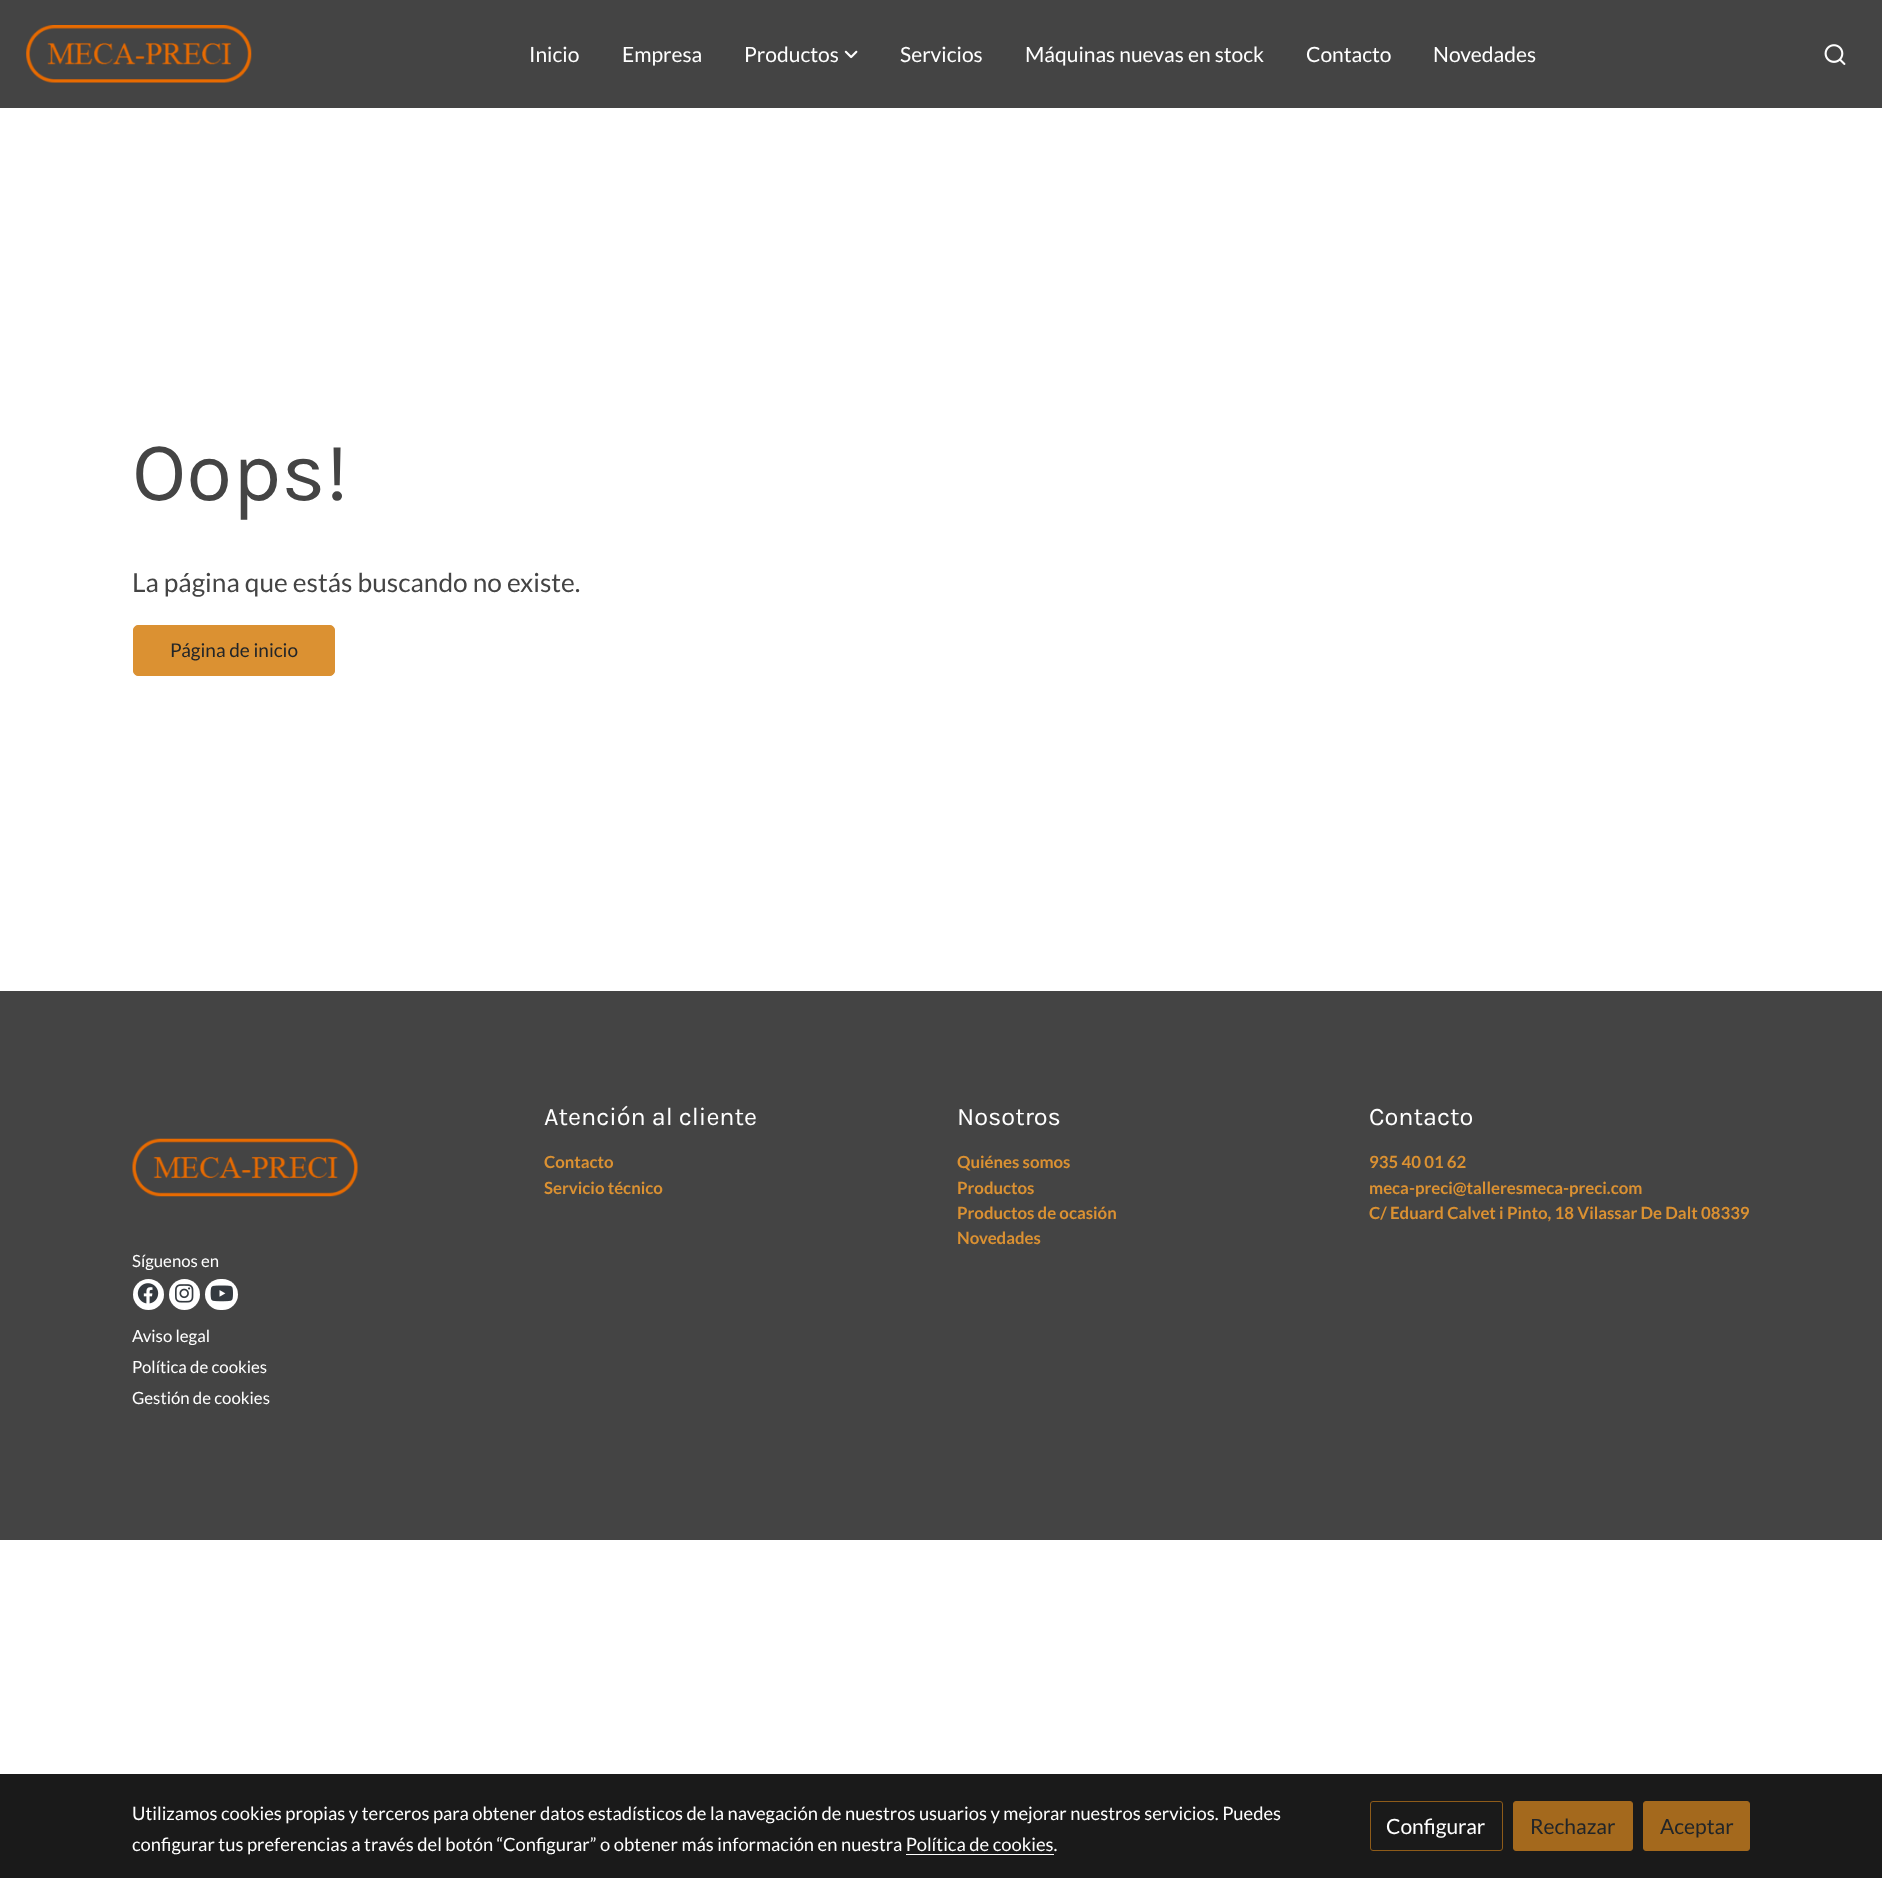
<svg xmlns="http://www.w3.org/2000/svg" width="1882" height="1878">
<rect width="100%" height="100%" fill="#fff"/>
<rect width="1882" height="108" fill="#444"/>
<image x="26" y="25" width="226" height="58" href="media/1.png"/>
<text x="529" y="62" style="font-family:Lato;font-size:21px;fill:#fff">Inicio</text>
<text x="622" y="62" style="font-family:Lato;font-size:21px;fill:#fff">Empresa</text>
<text x="744" y="62" style="font-family:Lato;font-size:21px;fill:#fff">Productos</text>
<image x="844" y="50" width="14" height="9" href="media/2.png"/>
<text x="900" y="62" style="font-family:Lato;font-size:21px;fill:#fff">Servicios</text>
<text x="1025" y="62" style="font-family:Lato;font-size:21px;fill:#fff">Máquinas nuevas en stock</text>
<text x="1306" y="62" style="font-family:Lato;font-size:21px;fill:#fff">Contacto</text>
<text x="1433" y="62" style="font-family:Lato;font-size:21px;fill:#fff">Novedades</text>
<image x="1824" y="44" width="22" height="21" href="media/3.png"/>
<text x="132" y="500" style="font-family:Karla;font-size:84px;fill:#444">Oops!</text>
<text x="132" y="592" style="font-family:Lato;font-size:26.25px;fill:#444">La página que estás buscando no existe.</text>
<rect x="133.5" y="625.5" width="201" height="50" rx="4.5" fill="#db9132" stroke="#db9132"/>
<text x="170" y="657" style="font-family:Lato;font-size:19px;fill:#212529">Página de inicio</text>
<rect y="991" width="1882" height="549" fill="#444"/>
<text x="544" y="1125" style="font-family:Karla;font-size:25.25px;fill:#fff">Atención al cliente</text>
<text x="544" y="1168" style="font-family:Lato;font-size:16.8px;font-weight:bold;fill:#db9132">Contacto</text>
<text x="544" y="1194" style="font-family:Lato;font-size:16.8px;font-weight:bold;fill:#db9132">Servicio técnico</text>
<text x="957" y="1125" style="font-family:Karla;font-size:25.25px;fill:#fff">Nosotros</text>
<text x="957" y="1168" style="font-family:Lato;font-size:16.8px;font-weight:bold;fill:#db9132">Quiénes somos</text>
<text x="957" y="1194" style="font-family:Lato;font-size:16.8px;font-weight:bold;fill:#db9132">Productos</text>
<text x="957" y="1219" style="font-family:Lato;font-size:16.8px;font-weight:bold;fill:#db9132">Productos de ocasión</text>
<text x="957" y="1244" style="font-family:Lato;font-size:16.8px;font-weight:bold;fill:#db9132">Novedades</text>
<text x="1369" y="1125" style="font-family:Karla;font-size:25.25px;fill:#fff">Contacto</text>
<text x="1369" y="1168" style="font-family:Lato;font-size:16.8px;font-weight:bold;fill:#db9132">935 40 01 62</text>
<text x="1369" y="1194" style="font-family:Lato;font-size:16.8px;font-weight:bold;fill:#db9132">meca-preci@talleresmeca-preci.com</text>
<text x="1369" y="1219" style="font-family:Lato;font-size:16.8px;font-weight:bold;fill:#db9132">C/ Eduard Calvet i Pinto, 18 Vilassar De Dalt 08339</text>
<image x="132" y="1138" width="226" height="59" href="media/4.png"/>
<text x="132" y="1267" style="font-family:Lato;font-size:16.8px;fill:#fff">Síguenos en</text>
<circle cx="148.5" cy="1294.5" r="15.5" fill="#fff"/>
<image x="137" y="1283" width="22" height="21" href="media/5.png"/>
<circle cx="184.5" cy="1294.5" r="15.5" fill="#fff"/>
<image x="175" y="1284" width="19" height="19" href="media/6.png"/>
<rect x="205" y="1279" width="33" height="31" rx="15.5" fill="#fff"/>
<image x="210" y="1285" width="23" height="17" href="media/7.png"/>
<text x="132" y="1342" style="font-family:Lato;font-size:16.8px;fill:#fff">Aviso legal</text>
<text x="132" y="1373" style="font-family:Lato;font-size:16.8px;fill:#fff">Política de cookies</text>
<text x="132" y="1404" style="font-family:Lato;font-size:16.8px;fill:#fff">Gestión de cookies</text>
<rect y="1774" width="1882" height="104" fill="#1a1a1a"/>
<text x="132" y="1820" style="font-family:Lato;font-size:18.38px;fill:#fff">Utilizamos cookies propias y terceros para obtener datos estadísticos de la navegación de nuestros usuarios y mejorar nuestros servicios. Puedes</text>
<text x="132" y="1851" style="font-family:Lato;font-size:18.38px;fill:#fff">configurar tus preferencias a través del botón “Configurar” o obtener más información en nuestra Política de cookies.</text>
<rect x="906" y="1854" width="148" height="1" fill="#fff"/>
<rect x="1370.5" y="1801.5" width="132" height="49" rx="2.5" fill="none" stroke="#8e5b19"/>
<text x="1386" y="1834" style="font-family:Lato;font-size:21px;fill:#fff">Configurar</text>
<rect x="1513.5" y="1801.5" width="119" height="49" rx="2.5" fill="#a4691d" stroke="#a4691d"/>
<text x="1530" y="1834" style="font-family:Lato;font-size:21px;fill:#212529">Rechazar</text>
<rect x="1643.5" y="1801.5" width="106" height="49" rx="2.5" fill="#a4691d" stroke="#a4691d"/>
<text x="1660" y="1834" style="font-family:Lato;font-size:21px;fill:#212529">Aceptar</text>
</svg>
